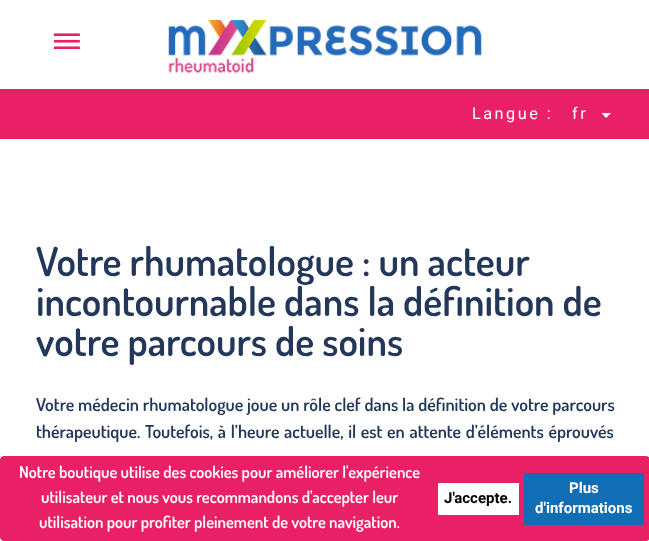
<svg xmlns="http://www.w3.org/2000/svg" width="649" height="541">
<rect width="100%" height="100%" fill="#fff"/>
<image x="53" y="33" width="27" height="16" href="media/1.png"/>
<image x="168" y="20" width="314" height="54" href="media/2.png"/>
<rect y="89" width="649" height="50" fill="#e92065"/>
<text x="472" y="119" style="font-family:Heebo;font-size:16.25px;letter-spacing:2.5px;fill:#fff">Langue :</text>
<text x="572" y="119" style="font-family:Heebo;font-size:16.25px;letter-spacing:2.5px;fill:#fff">fr</text>
<path d="M601.5 113h9.5l-5 5z" fill="#fff"/>
<rect x="0.5" y="456.5" width="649" height="84" rx="3.5" fill="#e92065" stroke="#e92065"/>
<text x="19" y="478" style="font-family:Dosis;font-size:16.5px;font-weight:600;fill:#fff">Notre boutique utilise des cookies pour améliorer l'expérience</text>
<text x="41" y="503" style="font-family:Dosis;font-size:16.5px;font-weight:600;fill:#fff">utilisateur et nous vous recommandons d'accepter leur</text>
<text x="39" y="528" style="font-family:Dosis;font-size:16.5px;font-weight:600;fill:#fff">utilisation pour profiter pleinement de votre navigation.</text>
<rect x="438" y="483" width="81" height="32" fill="#fff"/>
<text x="444" y="503" style="font-family:Heebo;font-size:15px;font-weight:bold;fill:#000">J'accepte.</text>
<rect x="524" y="473" width="120" height="52" fill="#116db4"/>
<text x="569" y="493" style="font-family:Heebo;font-size:15px;font-weight:bold;fill:#fff">Plus</text>
<text x="535" y="513" style="font-family:Heebo;font-size:15px;font-weight:bold;fill:#fff">d'informations</text>
<text x="36" y="276" style="font-family:Dosis;font-size:40px;font-weight:600;fill:#22375a">Votre rhumatologue : un acteur</text>
<text x="36" y="316" style="font-family:Dosis;font-size:40px;font-weight:600;fill:#22375a">incontournable dans la définition de</text>
<text x="36" y="356" style="font-family:Dosis;font-size:40px;font-weight:600;fill:#22375a">votre parcours de soins</text>
<text x="36" y="411" word-spacing="0.25" style="font-family:Dosis;font-size:17.9px;font-weight:600;fill:#22375a">Votre médecin rhumatologue joue un rôle clef dans la définition de votre parcours</text>
<text x="36" y="438" word-spacing="1.1" style="font-family:Dosis;font-size:17.9px;font-weight:600;fill:#22375a">thérapeutique. Toutefois, à l’heure actuelle, il est en attente d’éléments éprouvés</text>
</svg>
